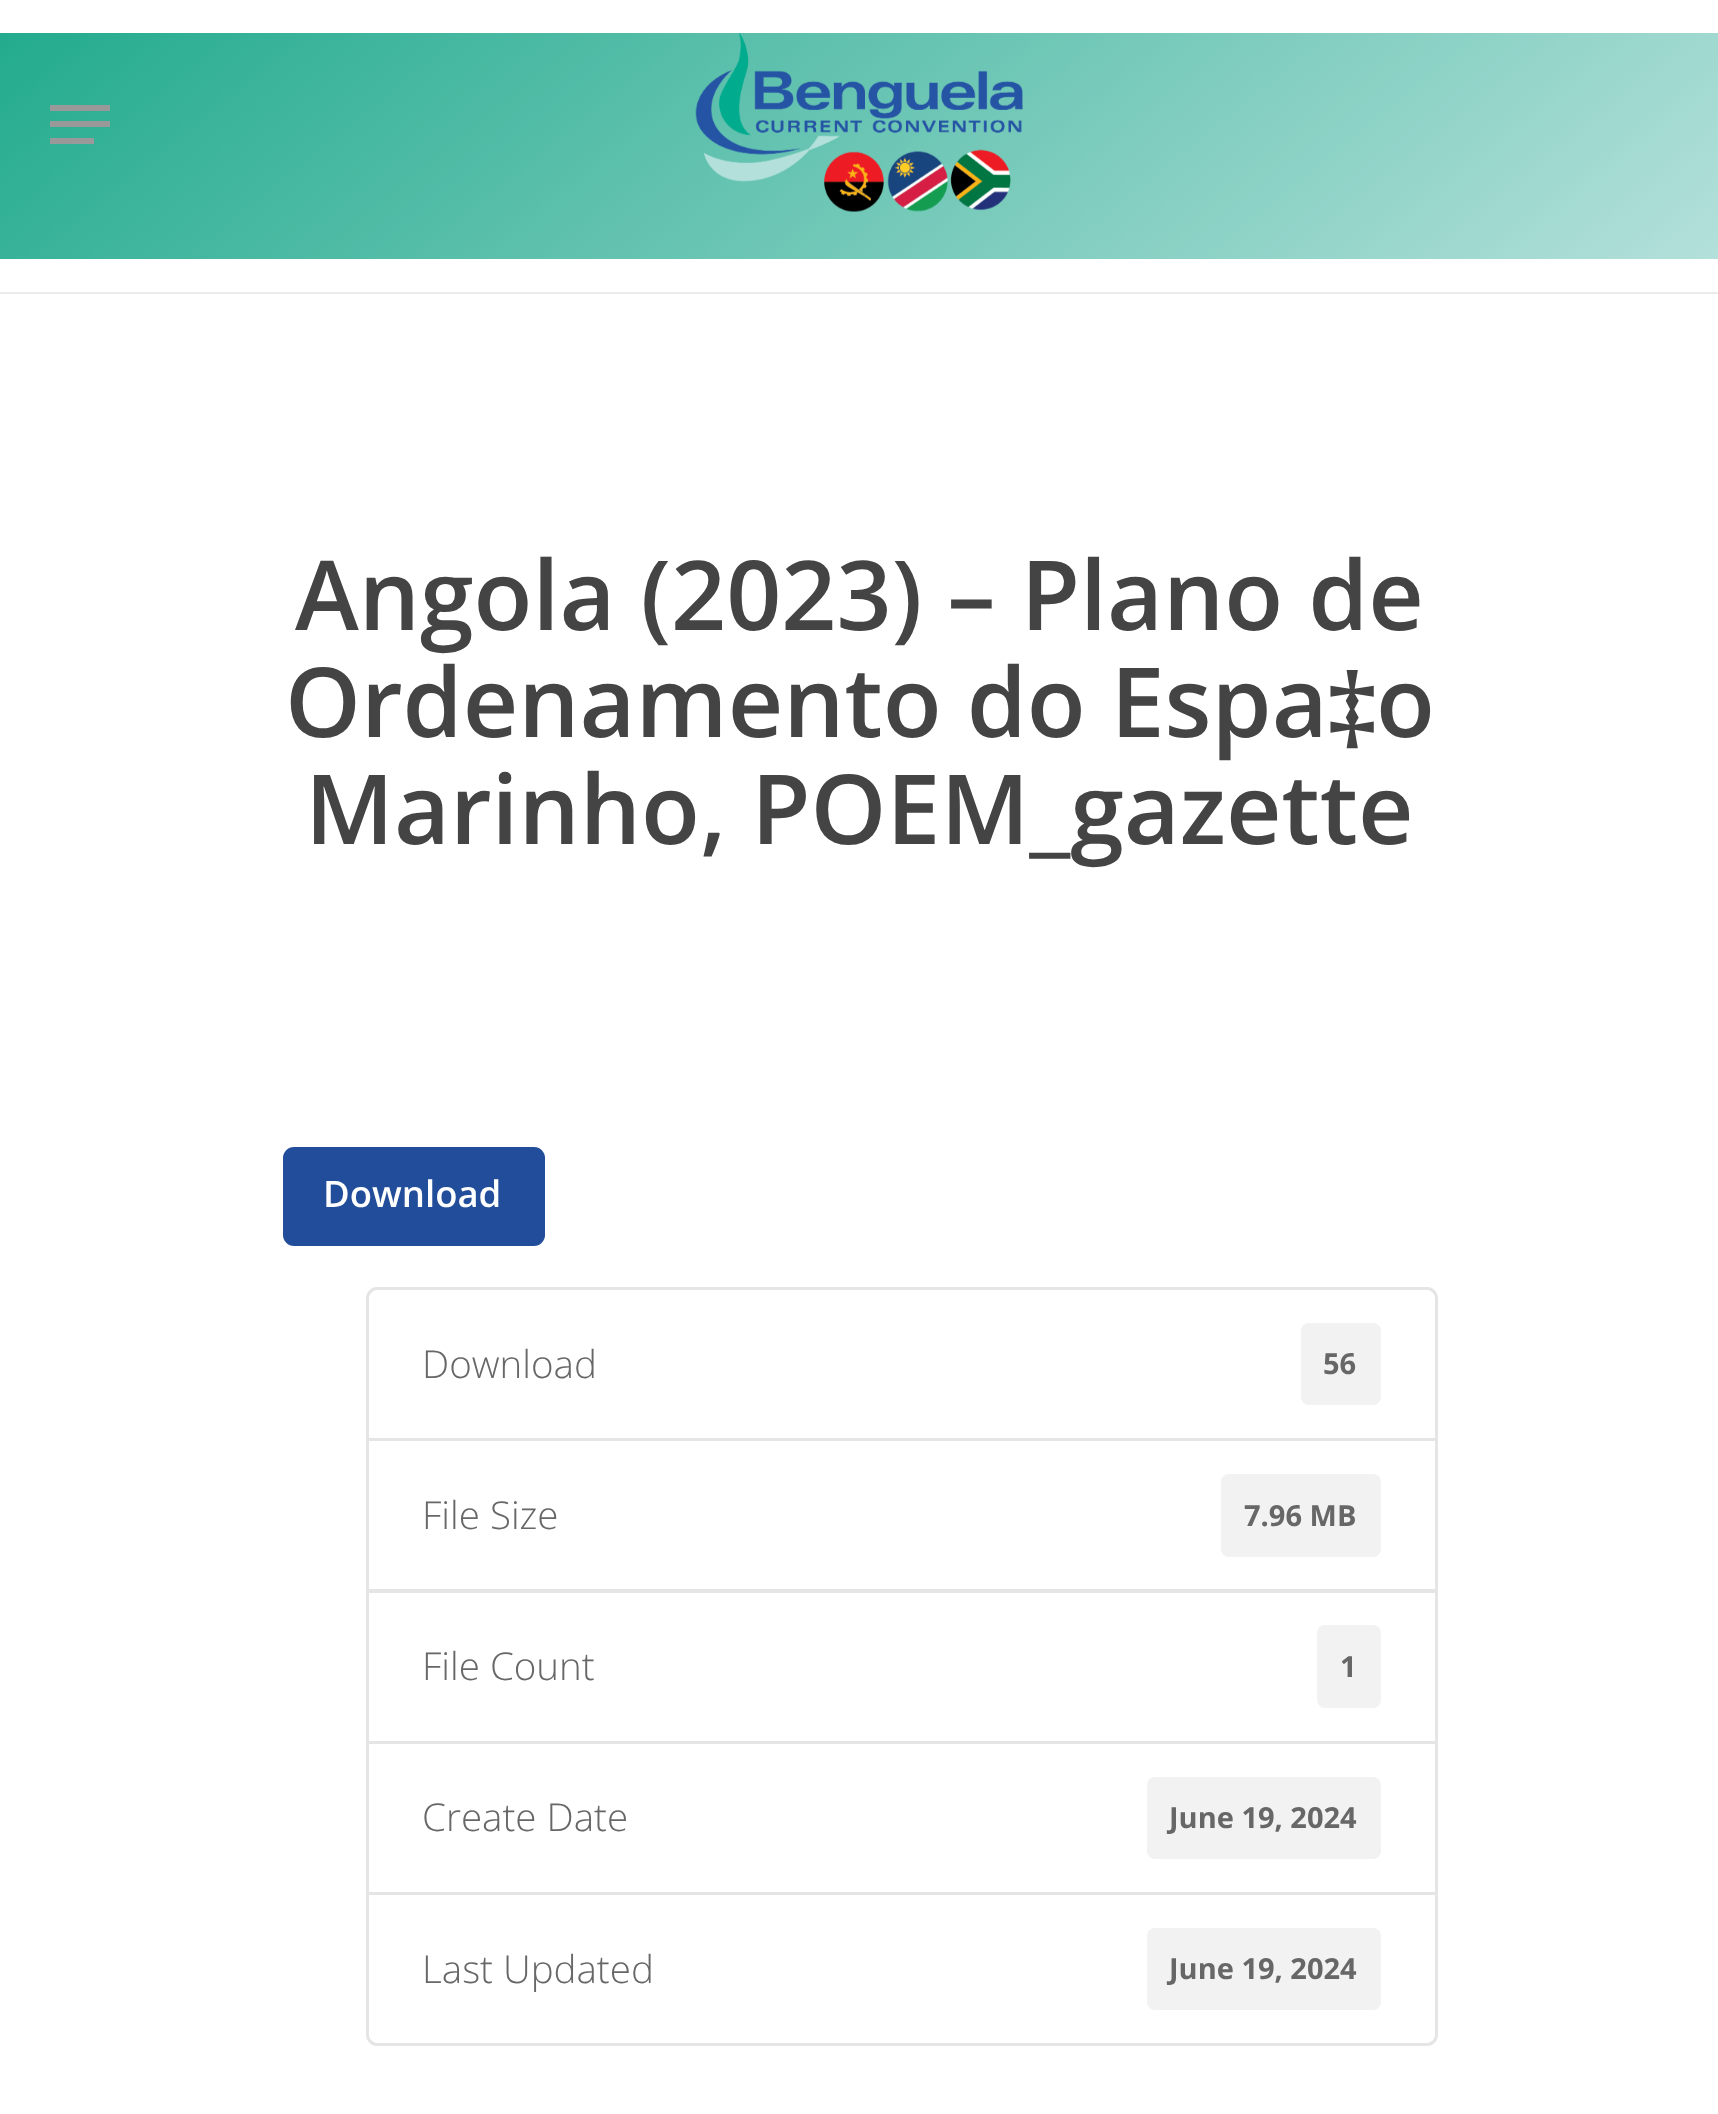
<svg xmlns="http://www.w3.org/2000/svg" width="1718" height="2114">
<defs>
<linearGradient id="g1" gradientUnits="userSpaceOnUse" x1="464" y1="-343" x2="1255" y2="634"><stop offset="0" stop-color="#23ab8e"/><stop offset="1" stop-color="#b3e0da"/></linearGradient>
</defs>
<rect width="100%" height="100%" fill="#fff"/>
<path d="M0 292v2h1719v-291v289z" fill="#ebebeb"/>
<rect y="33" width="1718" height="226" fill="url(#g1)"/>
<rect x="50" y="105" width="60" height="6" fill="#999"/>
<rect x="50" y="138" width="44" height="6" fill="#999"/>
<rect x="50" y="121" width="60" height="6" fill="#999"/>
<image x="695" y="33" width="328" height="179" href="media/1.png"/>
<text x="295" y="630" style="font-family:Open Sans;font-size:96.5px;font-weight:600;fill:#444">Angola (2023) – Plano de</text>
<text x="285" y="737" style="font-family:Open Sans;font-size:96.5px;font-weight:600;fill:#444">Ordenamento do Espa</text>
<text x="1328" y="737" style="font-family:Liberation Serif;font-size:96.5px;font-weight:bold;fill:#444">‡</text>
<text x="1376" y="737" style="font-family:Open Sans;font-size:96.5px;font-weight:600;fill:#444">o</text>
<text x="305" y="844" style="font-family:Open Sans;font-size:96.5px;font-weight:600;fill:#444">Marinho, POEM_gazette</text>
<rect x="283" y="1147" width="262" height="99" rx="11" fill="#224d9a"/>
<text x="323" y="1207" style="font-family:Open Sans;font-size:36.5px;font-weight:600;fill:#fff">Download</text>
<path d="M377 1288.5h1050c5 0 9.5 4.5 9.5 9.5v141.5h-1069v-141.5c0-5 4.5-9.5 9.5-9.5z" fill="none" stroke="#e5e5e5" stroke-width="3"/>
<text x="422" y="1378" style="font-family:Open Sans;font-size:38.5px;font-weight:300;fill:#676767">Download</text>
<rect x="1301" y="1323" width="80" height="82" rx="8" fill="#f2f2f2"/>
<text x="1323" y="1374" style="font-family:Open Sans;font-size:29px;font-weight:bold;fill:#676767">56</text>
<rect x="367.5" y="1439.5" width="1069" height="151" fill="none" stroke="#e5e5e5" stroke-width="3"/>
<text x="422" y="1529" style="font-family:Open Sans;font-size:38.5px;font-weight:300;fill:#676767">File Size</text>
<rect x="1221" y="1474" width="160" height="83" rx="8" fill="#f2f2f2"/>
<text x="1244" y="1526" style="font-family:Open Sans;font-size:29px;font-weight:bold;fill:#676767">7.96 MB</text>
<rect x="367.5" y="1591.5" width="1069" height="151" fill="none" stroke="#e5e5e5" stroke-width="3"/>
<text x="422" y="1680" style="font-family:Open Sans;font-size:38.5px;font-weight:300;fill:#676767">File Count</text>
<rect x="1317" y="1625" width="64" height="83" rx="8" fill="#f2f2f2"/>
<text x="1340" y="1677" style="font-family:Open Sans;font-size:29px;font-weight:bold;fill:#676767">1</text>
<rect x="367.5" y="1742.5" width="1069" height="151" fill="none" stroke="#e5e5e5" stroke-width="3"/>
<text x="422" y="1831" style="font-family:Open Sans;font-size:38.5px;font-weight:300;fill:#676767">Create Date</text>
<rect x="1147" y="1777" width="234" height="82" rx="8" fill="#f2f2f2"/>
<text x="1169" y="1828" style="font-family:Open Sans;font-size:29px;font-weight:bold;fill:#676767">June 19, 2024</text>
<path d="M367.5 1893.5h1069v141.5c0 5-4.5 9.5-9.5 9.5h-1050c-5 0-9.5-4.5-9.5-9.5z" fill="#fff" stroke="#e5e5e5" stroke-width="3"/>
<text x="422" y="1983" style="font-family:Open Sans;font-size:38.5px;font-weight:300;fill:#676767">Last Updated</text>
<rect x="1147" y="1928" width="234" height="82" rx="8" fill="#f2f2f2"/>
<text x="1169" y="1979" style="font-family:Open Sans;font-size:29px;font-weight:bold;fill:#676767">June 19, 2024</text>
</svg>
